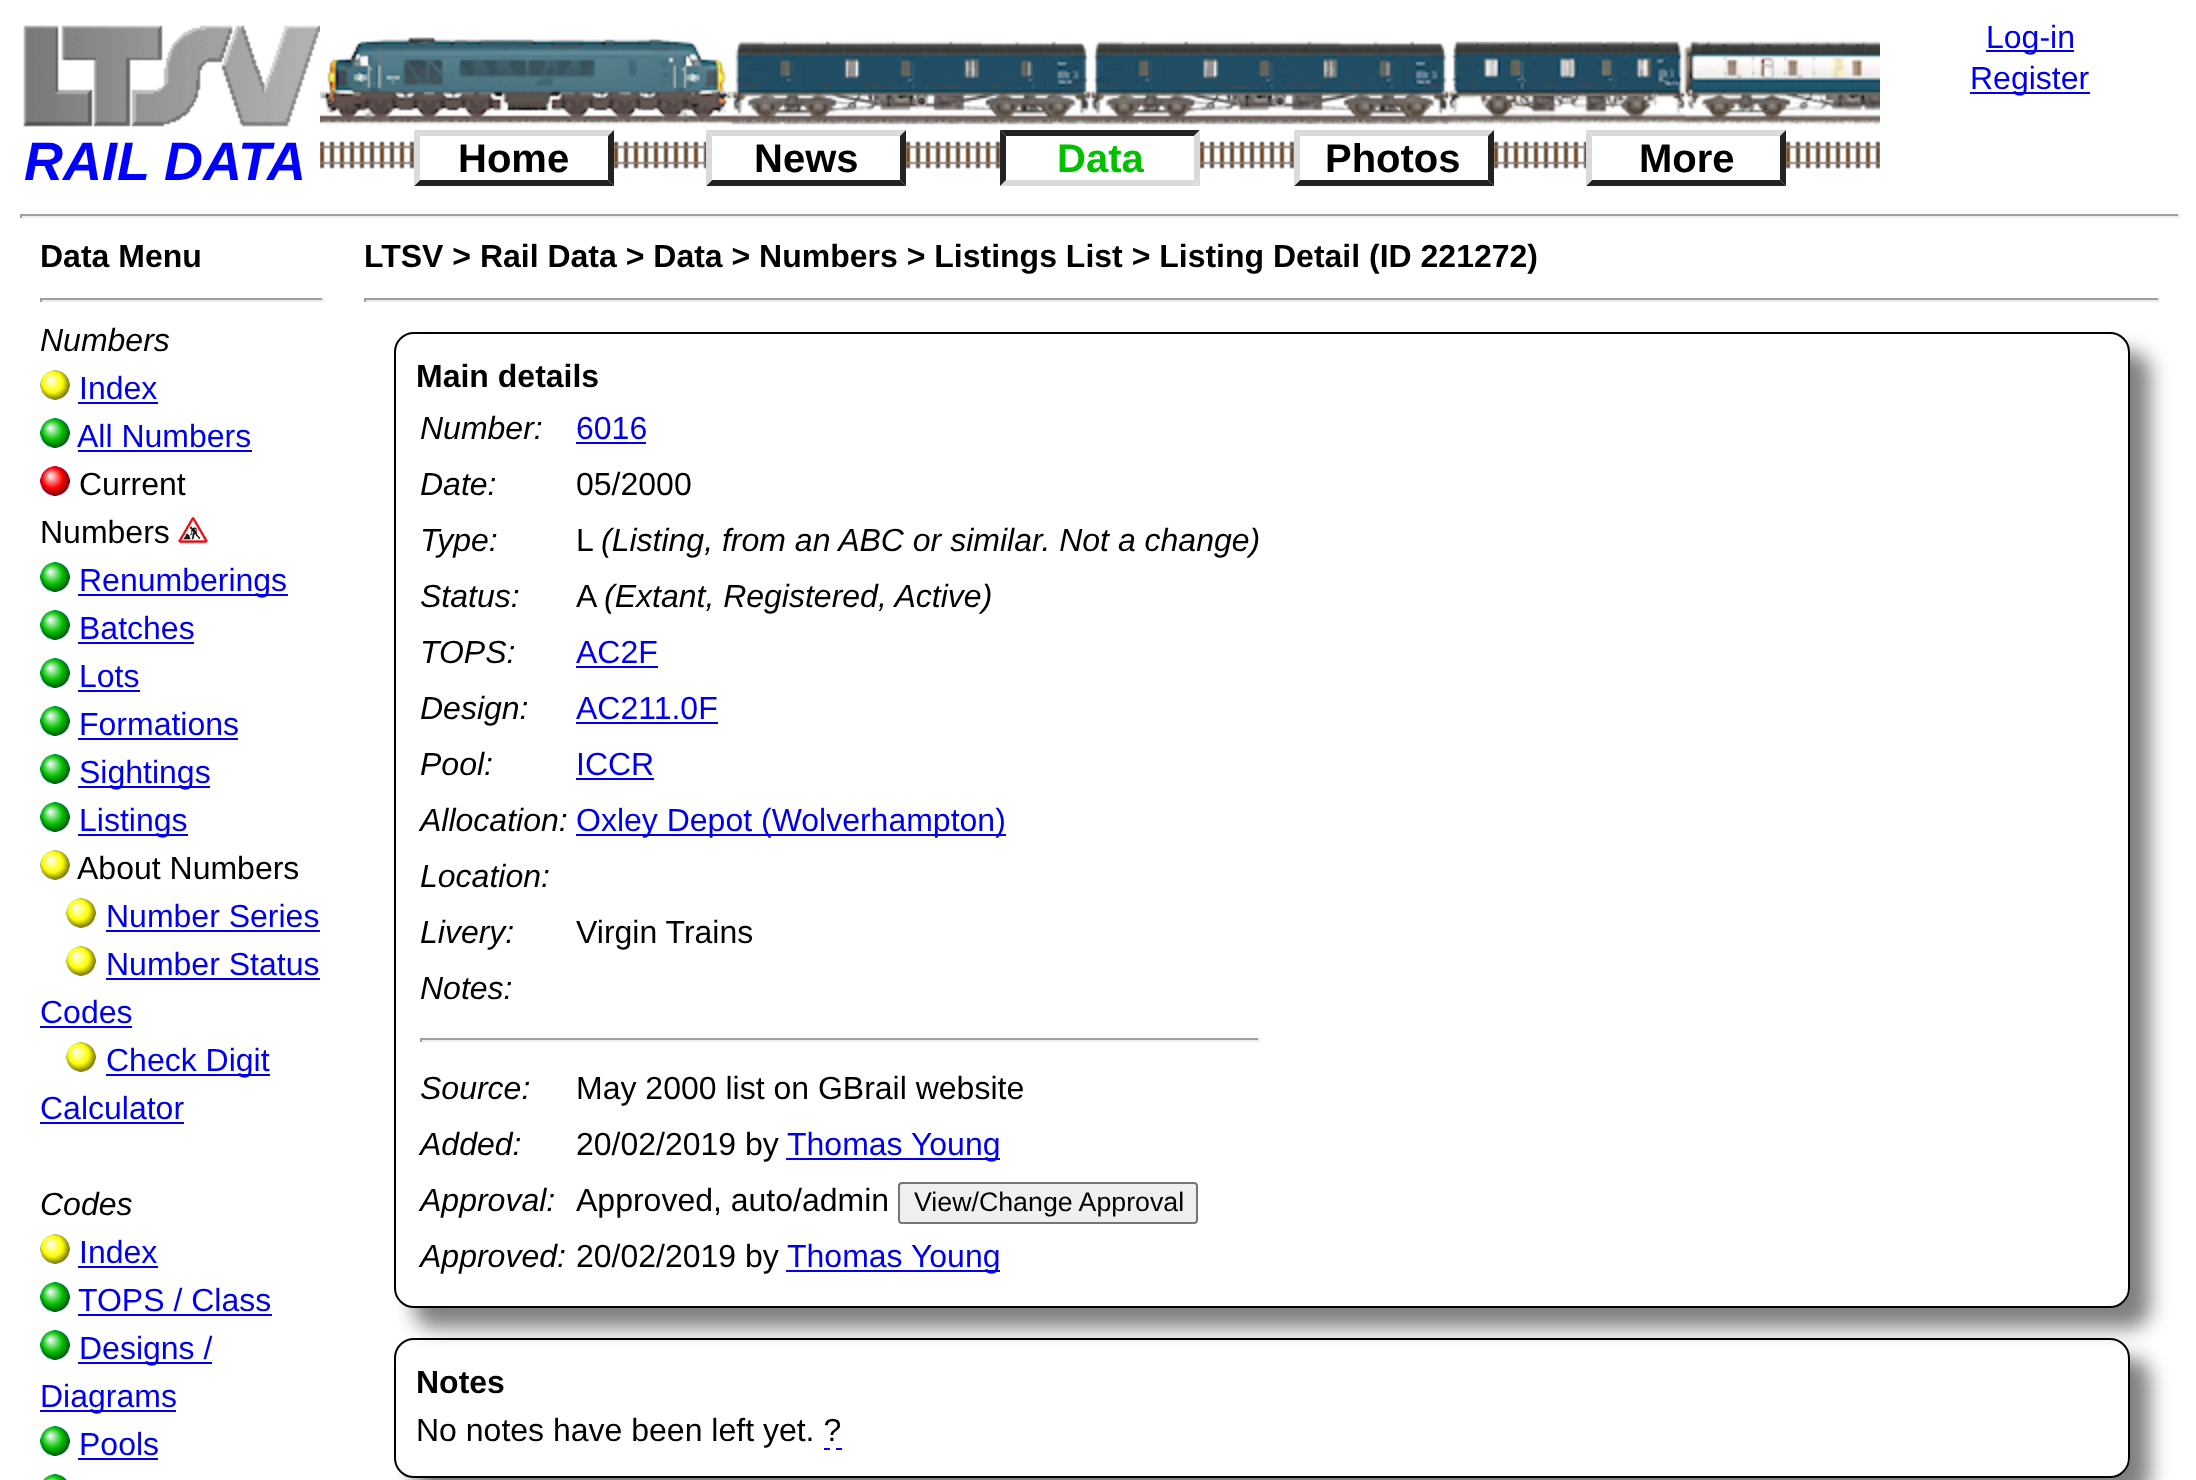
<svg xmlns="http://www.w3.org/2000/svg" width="2196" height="1480">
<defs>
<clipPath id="clip1"><path d="M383 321h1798v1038h-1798zm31 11h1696c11 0 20 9 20 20v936c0 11-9 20-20 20h-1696c-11 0-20-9-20-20v-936c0-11 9-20 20-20z" clip-rule="evenodd"/></clipPath>
<clipPath id="clip2"><path d="M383 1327h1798v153h-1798zm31 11h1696c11 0 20 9 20 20v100c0 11-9 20-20 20h-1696c-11 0-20-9-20-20v-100c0-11 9-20 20-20z" clip-rule="evenodd"/></clipPath>
</defs>
<rect width="100%" height="100%" fill="#fff"/>
<image x="23" y="25" width="297" height="102" href="media/1.png"/>
<image x="320" y="37" width="1560" height="88" href="media/2.png"/>
<rect x="1986" y="50" width="88" height="2" fill="#00e"/>
<text x="1986" y="48" style="font-family:Liberation Sans;font-size:32px;fill:#00e">Log-in</text>
<rect x="1970" y="92" width="120" height="2" fill="#00e"/>
<text x="1970" y="89" style="font-family:Liberation Sans;font-size:32px;fill:#00e">Register</text>
<text x="24" y="180" style="font-family:Liberation Sans;font-size:54px;font-weight:bold;font-style:italic;fill:#00f">RAIL DATA</text>
<image x="320" y="141" width="94" height="28" href="media/3.png"/>
<path d="M414 130h200l-6 6h-188z" fill="#dadada"/>
<path d="M614 130v56l-6-6v-44z" fill="#222"/>
<path d="M614 186h-200l6-6h188z" fill="#222"/>
<path d="M414 186v-56l6 6v44z" fill="#dadada"/>
<text x="458" y="172" style="font-family:Liberation Sans;font-size:40px;font-weight:bold;fill:#000">Home</text>
<image x="614" y="141" width="92" height="28" href="media/4.png"/>
<path d="M706 130h200l-6 6h-188z" fill="#dadada"/>
<path d="M906 130v56l-6-6v-44z" fill="#222"/>
<path d="M906 186h-200l6-6h188z" fill="#222"/>
<path d="M706 186v-56l6 6v44z" fill="#dadada"/>
<text x="754" y="172" style="font-family:Liberation Sans;font-size:40px;font-weight:bold;fill:#000">News</text>
<image x="906" y="141" width="94" height="28" href="media/3.png"/>
<path d="M1000 130h200l-6 6h-188z" fill="#222"/>
<path d="M1200 130v56l-6-6v-44z" fill="#dadada"/>
<path d="M1200 186h-200l6-6h188z" fill="#dadada"/>
<path d="M1000 186v-56l6 6v44z" fill="#222"/>
<text x="1057" y="172" style="font-family:Liberation Sans;font-size:40px;font-weight:bold;fill:#00c000">Data</text>
<image x="1200" y="141" width="94" height="28" href="media/3.png"/>
<path d="M1294 130h200l-6 6h-188z" fill="#dadada"/>
<path d="M1494 130v56l-6-6v-44z" fill="#222"/>
<path d="M1494 186h-200l6-6h188z" fill="#222"/>
<path d="M1294 186v-56l6 6v44z" fill="#dadada"/>
<text x="1325" y="172" style="font-family:Liberation Sans;font-size:40px;font-weight:bold;fill:#000">Photos</text>
<image x="1494" y="141" width="92" height="28" href="media/4.png"/>
<path d="M1586 130h200l-6 6h-188z" fill="#dadada"/>
<path d="M1786 130v56l-6-6v-44z" fill="#222"/>
<path d="M1786 186h-200l6-6h188z" fill="#222"/>
<path d="M1586 186v-56l6 6v44z" fill="#dadada"/>
<text x="1639" y="172" style="font-family:Liberation Sans;font-size:40px;font-weight:bold;fill:#000">More</text>
<image x="1786" y="141" width="94" height="28" href="media/3.png"/>
<rect x="20" y="214" width="2160" height="2" fill="#9f9f9f"/>
<rect x="2178" y="214" width="2" height="4" fill="#eee"/>
<rect x="20" y="216" width="2160" height="2" fill="#eee"/>
<rect x="20" y="214" width="2" height="4" fill="#9f9f9f"/>
<text x="40" y="267" style="font-family:Liberation Sans;font-size:32px;font-weight:bold;fill:#000">Data Menu</text>
<rect x="40" y="298" width="284" height="2" fill="#9f9f9f"/>
<rect x="322" y="298" width="2" height="4" fill="#eee"/>
<rect x="40" y="300" width="284" height="2" fill="#eee"/>
<rect x="40" y="298" width="2" height="4" fill="#9f9f9f"/>
<text x="40" y="351" style="font-family:Liberation Sans;font-size:32px;font-style:italic;fill:#000">Numbers</text>
<image x="40" y="370" width="30" height="30" href="media/5.png"/>
<text x="79" y="399" style="font-family:Liberation Sans;font-size:32px;fill:#00e">Index</text>
<rect x="78" y="402" width="80" height="2" fill="#00e"/>
<image x="40" y="418" width="30" height="30" href="media/6.png"/>
<text x="77" y="447" style="font-family:Liberation Sans;font-size:32px;fill:#00e">All Numbers</text>
<rect x="78" y="450" width="174" height="2" fill="#00e"/>
<image x="40" y="466" width="30" height="30" href="media/7.png"/>
<text x="79" y="495" style="font-family:Liberation Sans;font-size:32px;fill:#000">Current</text>
<text x="40" y="543" style="font-family:Liberation Sans;font-size:32px;fill:#000">Numbers</text>
<image x="178" y="516" width="30" height="28" href="media/8.png"/>
<image x="40" y="562" width="30" height="30" href="media/6.png"/>
<rect x="78" y="594" width="210" height="2" fill="#00e"/>
<text x="79" y="591" style="font-family:Liberation Sans;font-size:32px;fill:#00e">Renumberings</text>
<image x="40" y="610" width="30" height="30" href="media/6.png"/>
<text x="79" y="639" style="font-family:Liberation Sans;font-size:32px;fill:#00e">Batches</text>
<rect x="78" y="642" width="116" height="2" fill="#00e"/>
<image x="40" y="658" width="30" height="30" href="media/6.png"/>
<text x="79" y="687" style="font-family:Liberation Sans;font-size:32px;fill:#00e">Lots</text>
<rect x="78" y="690" width="62" height="2" fill="#00e"/>
<image x="40" y="706" width="30" height="30" href="media/6.png"/>
<text x="79" y="735" style="font-family:Liberation Sans;font-size:32px;fill:#00e">Formations</text>
<rect x="78" y="738" width="160" height="2" fill="#00e"/>
<image x="40" y="754" width="30" height="30" href="media/6.png"/>
<rect x="78" y="786" width="132" height="2" fill="#00e"/>
<text x="79" y="783" style="font-family:Liberation Sans;font-size:32px;fill:#00e">Sightings</text>
<image x="40" y="802" width="30" height="30" href="media/6.png"/>
<rect x="78" y="834" width="110" height="2" fill="#00e"/>
<text x="79" y="831" style="font-family:Liberation Sans;font-size:32px;fill:#00e">Listings</text>
<image x="40" y="850" width="30" height="30" href="media/5.png"/>
<text x="77" y="879" style="font-family:Liberation Sans;font-size:32px;fill:#000">About Numbers</text>
<image x="66" y="898" width="30" height="30" href="media/9.png"/>
<text x="106" y="927" style="font-family:Liberation Sans;font-size:32px;fill:#00e">Number Series</text>
<rect x="106" y="930" width="214" height="2" fill="#00e"/>
<image x="66" y="946" width="30" height="30" href="media/9.png"/>
<text x="106" y="975" style="font-family:Liberation Sans;font-size:32px;fill:#00e">Number Status</text>
<rect x="106" y="978" width="214" height="2" fill="#00e"/>
<text x="40" y="1023" style="font-family:Liberation Sans;font-size:32px;fill:#00e">Codes</text>
<rect x="40" y="1026" width="92" height="2" fill="#00e"/>
<image x="66" y="1042" width="30" height="30" href="media/9.png"/>
<rect x="106" y="1074" width="164" height="2" fill="#00e"/>
<text x="106" y="1071" style="font-family:Liberation Sans;font-size:32px;fill:#00e">Check Digit</text>
<text x="40" y="1119" style="font-family:Liberation Sans;font-size:32px;fill:#00e">Calculator</text>
<rect x="40" y="1122" width="144" height="2" fill="#00e"/>
<text x="40" y="1215" style="font-family:Liberation Sans;font-size:32px;font-style:italic;fill:#000">Codes</text>
<image x="40" y="1234" width="30" height="30" href="media/5.png"/>
<text x="79" y="1263" style="font-family:Liberation Sans;font-size:32px;fill:#00e">Index</text>
<rect x="78" y="1266" width="80" height="2" fill="#00e"/>
<image x="40" y="1282" width="30" height="30" href="media/6.png"/>
<text x="78" y="1311" style="font-family:Liberation Sans;font-size:32px;fill:#00e">TOPS / Class</text>
<rect x="78" y="1314" width="194" height="2" fill="#00e"/>
<image x="40" y="1330" width="30" height="30" href="media/6.png"/>
<rect x="78" y="1362" width="134" height="2" fill="#00e"/>
<text x="79" y="1359" style="font-family:Liberation Sans;font-size:32px;fill:#00e">Designs /</text>
<rect x="40" y="1410" width="136" height="2" fill="#00e"/>
<text x="40" y="1407" style="font-family:Liberation Sans;font-size:32px;fill:#00e">Diagrams</text>
<image x="40" y="1426" width="30" height="30" href="media/6.png"/>
<text x="79" y="1455" style="font-family:Liberation Sans;font-size:32px;fill:#00e">Pools</text>
<rect x="78" y="1458" width="80" height="2" fill="#00e"/>
<image x="43" y="1474" width="24" height="6" href="media/10.png"/>
<text x="364" y="267" style="font-family:Liberation Sans;font-size:32px;font-weight:bold;fill:#000">LTSV &gt; Rail Data &gt; Data &gt; Numbers &gt; Listings List &gt; Listing Detail (ID 221272)</text>
<rect x="364" y="298" width="1796" height="2" fill="#9f9f9f"/>
<rect x="2158" y="298" width="2" height="4" fill="#eee"/>
<rect x="364" y="300" width="1796" height="2" fill="#eee"/>
<rect x="364" y="298" width="2" height="4" fill="#9f9f9f"/>
<g clip-path="url(#clip1)">
<rect x="414" y="352" width="1736" height="976" rx="20" fill="#00000080" filter="blur(10px)"/>
</g>
<rect x="395" y="333" width="1734" height="974" rx="19" fill="none" stroke="#000" stroke-width="2"/>
<text x="416" y="387" style="font-family:Liberation Sans;font-size:32px;font-weight:bold;fill:#000">Main details</text>
<text x="420" y="439" style="font-family:Liberation Sans;font-size:32px;font-style:italic;fill:#000">Number:</text>
<text x="576" y="439" style="font-family:Liberation Sans;font-size:32px;fill:#00e">6016</text>
<rect x="576" y="442" width="70" height="2" fill="#00e"/>
<text x="420" y="495" style="font-family:Liberation Sans;font-size:32px;font-style:italic;fill:#000">Date:</text>
<text x="576" y="495" style="font-family:Liberation Sans;font-size:32px;fill:#000">05/2000</text>
<text x="420" y="551" style="font-family:Liberation Sans;font-size:32px;font-style:italic;fill:#000">Type:</text>
<text x="576" y="551" style="font-family:Liberation Sans;font-size:32px;fill:#000">L</text>
<text x="601" y="551" style="font-family:Liberation Sans;font-size:32px;font-style:italic;fill:#000">(Listing, from an ABC or similar. Not a change)</text>
<text x="420" y="607" style="font-family:Liberation Sans;font-size:32px;font-style:italic;fill:#000">Status:</text>
<text x="576" y="607" style="font-family:Liberation Sans;font-size:32px;fill:#000">A</text>
<text x="604" y="607" style="font-family:Liberation Sans;font-size:32px;font-style:italic;fill:#000">(Extant, Registered, Active)</text>
<text x="420" y="663" style="font-family:Liberation Sans;font-size:32px;font-style:italic;fill:#000">TOPS:</text>
<text x="576" y="663" style="font-family:Liberation Sans;font-size:32px;fill:#00e">AC2F</text>
<rect x="576" y="666" width="82" height="2" fill="#00e"/>
<text x="420" y="719" style="font-family:Liberation Sans;font-size:32px;font-style:italic;fill:#000">Design:</text>
<text x="576" y="719" style="font-family:Liberation Sans;font-size:32px;fill:#00e">AC211.0F</text>
<rect x="576" y="722" width="142" height="2" fill="#00e"/>
<text x="420" y="775" style="font-family:Liberation Sans;font-size:32px;font-style:italic;fill:#000">Pool:</text>
<text x="576" y="775" style="font-family:Liberation Sans;font-size:32px;fill:#00e">ICCR</text>
<rect x="576" y="778" width="78" height="2" fill="#00e"/>
<text x="420" y="831" style="font-family:Liberation Sans;font-size:32px;font-style:italic;fill:#000">Allocation:</text>
<rect x="576" y="834" width="430" height="2" fill="#00e"/>
<text x="576" y="831" style="font-family:Liberation Sans;font-size:32px;fill:#00e">Oxley Depot (Wolverhampton)</text>
<text x="420" y="887" style="font-family:Liberation Sans;font-size:32px;font-style:italic;fill:#000">Location:</text>
<text x="420" y="943" style="font-family:Liberation Sans;font-size:32px;font-style:italic;fill:#000">Livery:</text>
<text x="576" y="943" style="font-family:Liberation Sans;font-size:32px;fill:#000">Virgin Trains</text>
<text x="420" y="999" style="font-family:Liberation Sans;font-size:32px;font-style:italic;fill:#000">Notes:</text>
<rect x="420" y="1038" width="840" height="2" fill="#9f9f9f"/>
<rect x="1258" y="1038" width="2" height="4" fill="#eee"/>
<rect x="420" y="1040" width="840" height="2" fill="#eee"/>
<rect x="420" y="1038" width="2" height="4" fill="#9f9f9f"/>
<text x="420" y="1099" style="font-family:Liberation Sans;font-size:32px;font-style:italic;fill:#000">Source:</text>
<text x="576" y="1099" style="font-family:Liberation Sans;font-size:32px;fill:#000">May 2000 list on GBrail website</text>
<text x="420" y="1155" style="font-family:Liberation Sans;font-size:32px;font-style:italic;fill:#000">Added:</text>
<text x="576" y="1155" style="font-family:Liberation Sans;font-size:32px;fill:#000">20/02/2019 by</text>
<rect x="786" y="1158" width="214" height="2" fill="#00e"/>
<text x="787" y="1155" style="font-family:Liberation Sans;font-size:32px;fill:#00e">Thomas Young</text>
<text x="420" y="1211" style="font-family:Liberation Sans;font-size:32px;font-style:italic;fill:#000">Approval:</text>
<text x="576" y="1211" style="font-family:Liberation Sans;font-size:32px;fill:#000">Approved, auto/admin</text>
<rect x="899" y="1183" width="298" height="40" rx="3" fill="#efefef" stroke="#767676" stroke-width="2"/>
<text x="914" y="1211" style="font-family:Liberation Sans;font-size:26.75px;fill:#000">View/Change Approval</text>
<text x="420" y="1267" style="font-family:Liberation Sans;font-size:32px;font-style:italic;fill:#000">Approved:</text>
<text x="576" y="1267" style="font-family:Liberation Sans;font-size:32px;fill:#000">20/02/2019 by</text>
<rect x="786" y="1270" width="214" height="2" fill="#00e"/>
<text x="787" y="1267" style="font-family:Liberation Sans;font-size:32px;fill:#00e">Thomas Young</text>
<g clip-path="url(#clip2)">
<rect x="414" y="1358" width="1736" height="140" rx="20" fill="#00000080" filter="blur(10px)"/>
</g>
<rect x="395" y="1339" width="1734" height="138" rx="19" fill="none" stroke="#000" stroke-width="2"/>
<text x="416" y="1393" style="font-family:Liberation Sans;font-size:32px;font-weight:bold;fill:#000">Notes</text>
<text x="416" y="1441" style="font-family:Liberation Sans;font-size:32px;fill:#000">No notes have been left yet. ?</text>
<path d="M824 1449h6m6 0h6" fill="none" stroke="#00f" stroke-width="2"/>
</svg>
